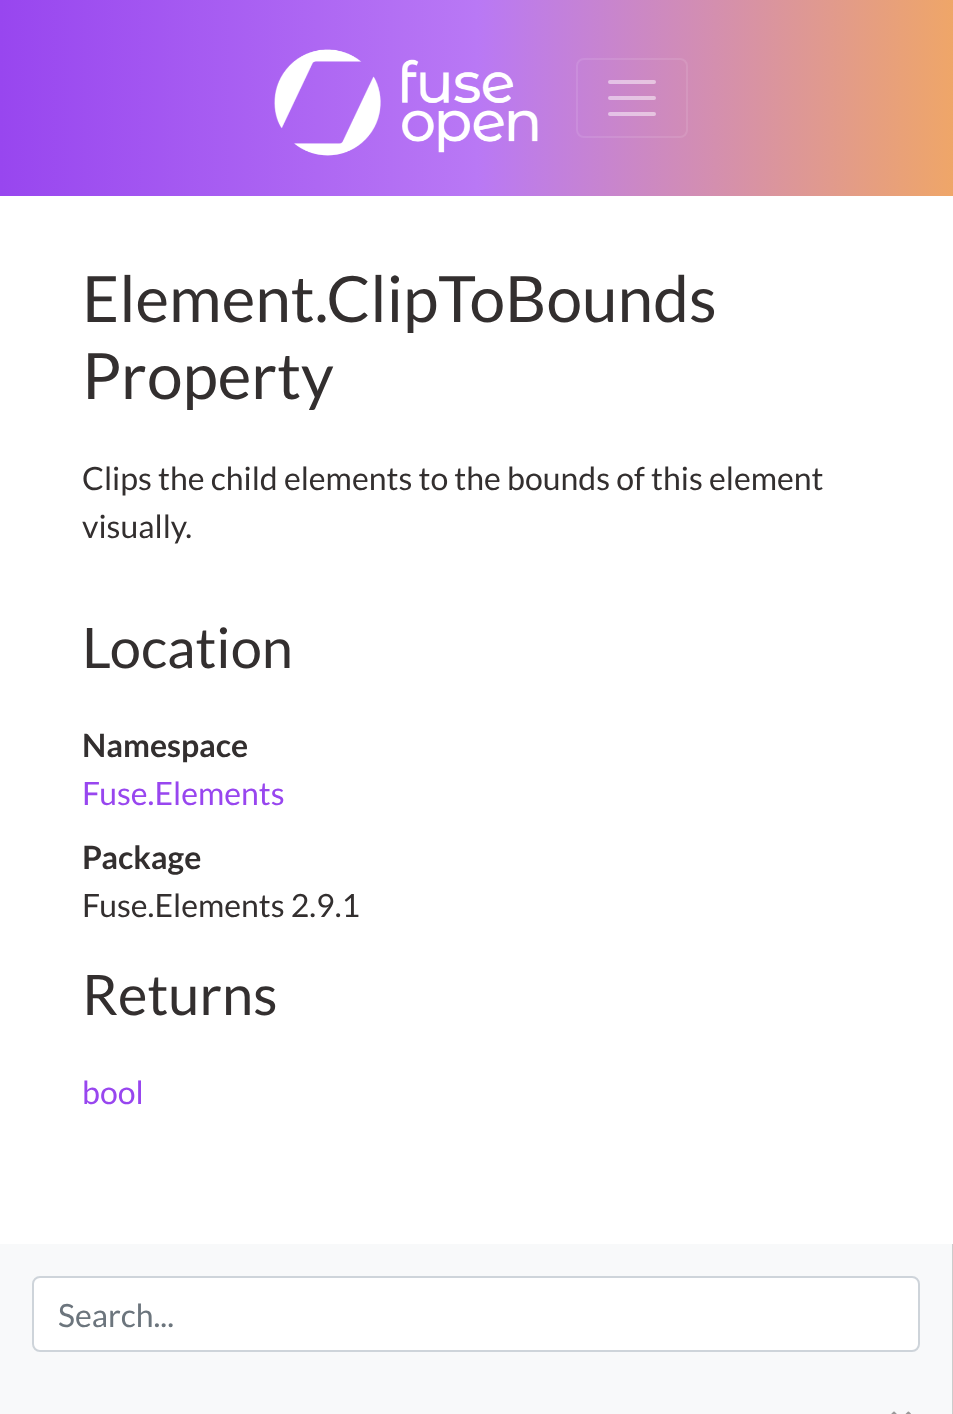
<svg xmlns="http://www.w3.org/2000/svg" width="953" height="1414">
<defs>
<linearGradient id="g1" gradientUnits="userSpaceOnUse" x1="0" y1="98" x2="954" y2="98"><stop offset="0" stop-color="#9846ef"/><stop offset="0.5" stop-color="#b978f5"/><stop offset="1" stop-color="#efa668"/></linearGradient>
</defs>
<rect width="100%" height="100%" fill="#fff"/>
<rect width="953" height="196" fill="url(#g1)"/>
<image x="274" y="49" width="264" height="107" href="media/1.png"/>
<rect x="577" y="59" width="110" height="78" rx="7" fill="none" stroke="#ffffff1a" stroke-width="2"/>
<path d="M610 82h44m-44 16h44m-44 16h44" fill="none" stroke="#ffffff80" stroke-width="4" stroke-linecap="round"/>
<text x="82" y="322" style="font-family:Lato;font-size:64px;fill:#332f2f">Element.ClipToBounds</text>
<text x="82" y="399" style="font-family:Lato;font-size:64px;fill:#332f2f">Property</text>
<text x="82" y="490" style="font-family:Lato;font-size:32px;fill:#332f2f">Clips the child elements to the bounds of this element</text>
<text x="82" y="538" style="font-family:Lato;font-size:32px;fill:#332f2f">visually.</text>
<text x="82" y="668" style="font-family:Lato;font-size:56px;fill:#332f2f">Location</text>
<text x="82" y="757" style="font-family:Lato;font-size:32px;font-weight:bold;fill:#332f2f">Namespace</text>
<text x="82" y="805" style="font-family:Lato;font-size:32px;fill:#9846ef">Fuse.Elements</text>
<text x="82" y="869" style="font-family:Lato;font-size:32px;font-weight:bold;fill:#332f2f">Package</text>
<text x="82" y="917" style="font-family:Lato;font-size:32px;fill:#332f2f">Fuse.Elements 2.9.1</text>
<text x="82" y="1015" style="font-family:Lato;font-size:56px;fill:#332f2f">Returns</text>
<text x="82" y="1104" style="font-family:Lato;font-size:32px;fill:#9846ef">bool</text>
<rect y="1244" width="952" height="170" fill="#f8f9fa"/>
<rect x="952" y="1244" width="1" height="170" fill="#ccc"/>
<rect x="33" y="1277" width="886" height="74" rx="7" fill="#fff" stroke="#ced4da" stroke-width="2"/>
<text x="58" y="1327" style="font-family:Lato;font-size:32px;fill:#6c757d">Search...</text>
<image x="891" y="1411" width="20" height="3" href="media/2.png"/>
</svg>
